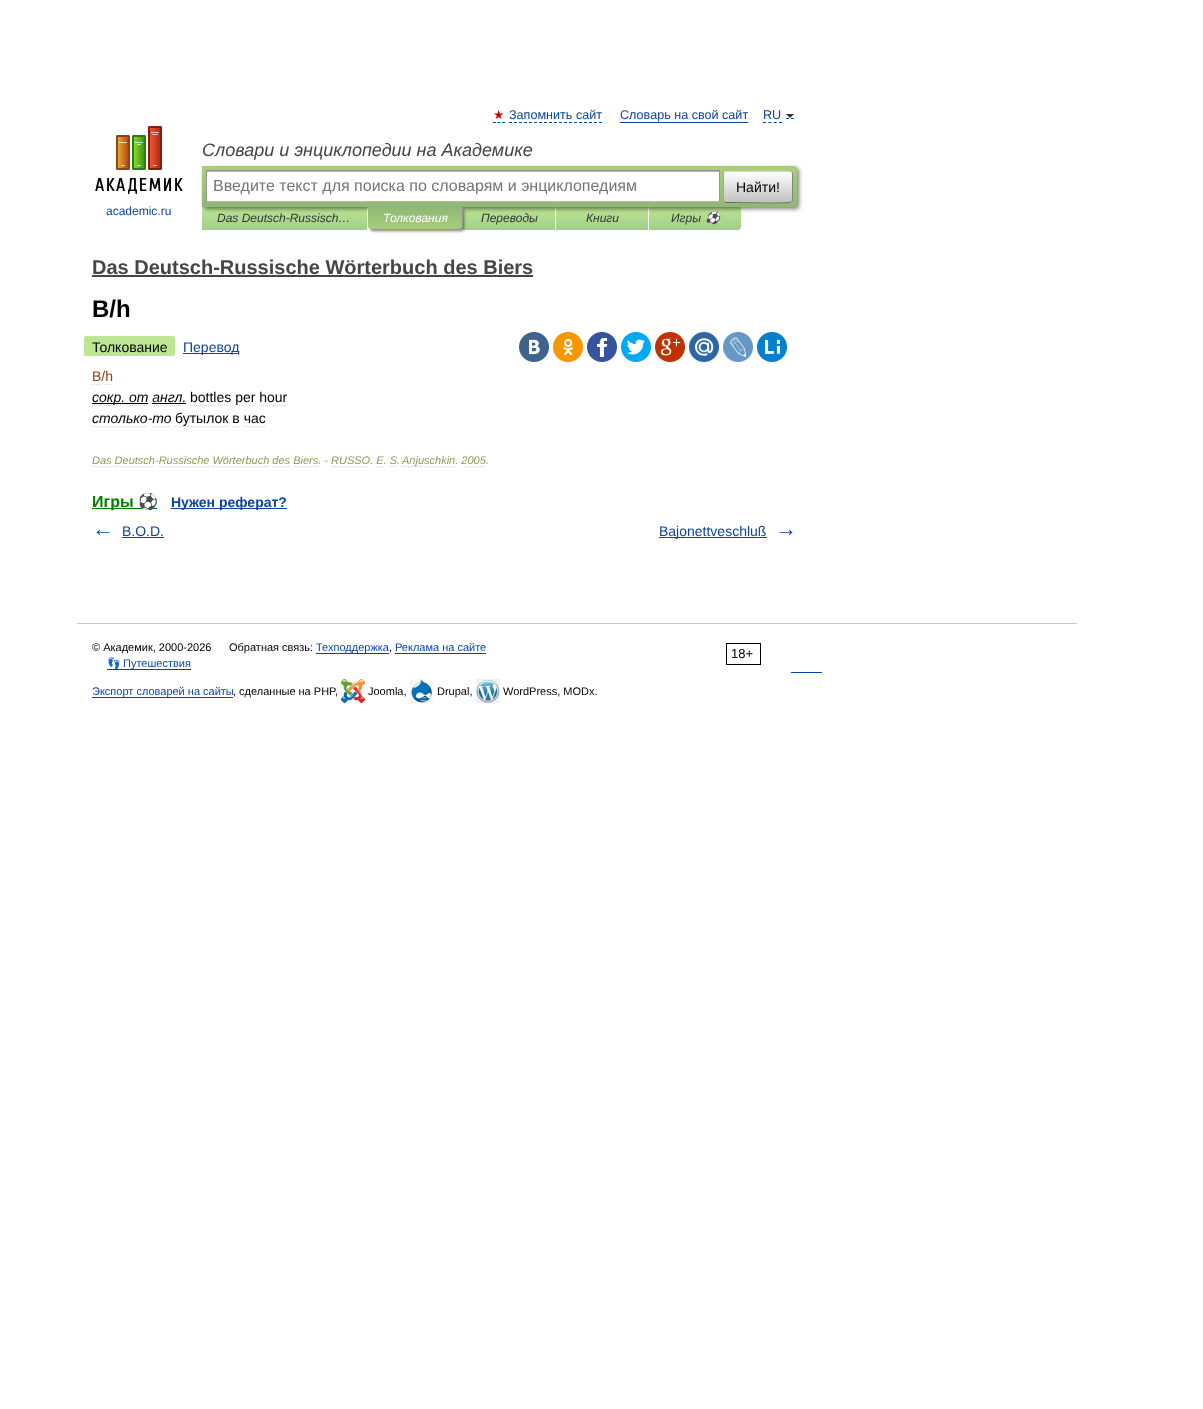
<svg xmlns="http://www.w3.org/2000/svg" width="1203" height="1409">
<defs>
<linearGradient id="g1" gradientUnits="userSpaceOnUse" x1="285" y1="207" x2="285" y2="230"><stop offset="0" stop-color="#bde693"/><stop offset="1" stop-color="#a0ce8a"/></linearGradient>
<linearGradient id="g2" gradientUnits="userSpaceOnUse" x1="509" y1="207" x2="509" y2="230"><stop offset="0" stop-color="#bde693"/><stop offset="1" stop-color="#a0ce8a"/></linearGradient>
<linearGradient id="g3" gradientUnits="userSpaceOnUse" x1="602" y1="207" x2="602" y2="230"><stop offset="0" stop-color="#bde693"/><stop offset="1" stop-color="#a0ce8a"/></linearGradient>
<linearGradient id="g4" gradientUnits="userSpaceOnUse" x1="695" y1="207" x2="695" y2="230"><stop offset="0" stop-color="#bde693"/><stop offset="1" stop-color="#a0ce8a"/></linearGradient>
<linearGradient id="g5" gradientUnits="userSpaceOnUse" x1="500" y1="166" x2="500" y2="207"><stop offset="0" stop-color="#abcf7e"/><stop offset="1" stop-color="#8eb874"/></linearGradient>
<clipPath id="clip1"><rect x="723" y="171" width="70" height="32" rx="3"/></clipPath>
<linearGradient id="g6" gradientUnits="userSpaceOnUse" x1="758" y1="142" x2="758" y2="172"><stop offset="0" stop-color="#fff"/><stop offset="1" stop-color="#c1c1c1"/></linearGradient>
<linearGradient id="g7" gradientUnits="userSpaceOnUse" x1="758" y1="172" x2="758" y2="202"><stop offset="0" stop-color="#fff"/><stop offset="1" stop-color="#c1c1c1"/></linearGradient>
<linearGradient id="g8" gradientUnits="userSpaceOnUse" x1="758" y1="202" x2="758" y2="232"><stop offset="0" stop-color="#fff"/><stop offset="1" stop-color="#c1c1c1"/></linearGradient>
<linearGradient id="g9" gradientUnits="userSpaceOnUse" x1="415" y1="207" x2="415" y2="229"><stop offset="0" stop-color="#8fb875"/><stop offset="1" stop-color="#a7cc7d"/></linearGradient>
</defs>
<rect width="100%" height="100%" fill="#fff"/>
<text x="493" y="119" style="font-family:DejaVu Sans;font-size:12.6px;fill:#c00">★</text>
<path d="M493 122.5h3m1.5 0h3m1.5 0h3" fill="none" stroke="#04a"/>
<text x="509" y="119" style="font-family:Liberation Sans;font-size:12.6px;fill:#0d44a0">Запомнить сайт</text>
<path d="M509 122.5h93" fill="none" stroke="#04a" stroke-dasharray="3 2"/>
<text x="620" y="119" style="font-family:Liberation Sans;font-size:12.6px;fill:#0d44a0">Словарь на свой сайт</text>
<rect x="620" y="122" width="128" height="1" fill="#0d44a0"/>
<path d="M763 122.5h19" fill="none" stroke="#04a" stroke-dasharray="3 2.33"/>
<path d="M786 118.5h3m2 0h3" fill="none" stroke="#04a"/>
<text x="763" y="119" style="font-family:Liberation Sans;font-size:12.6px;fill:#0d44a0">RU</text>
<path d="M786 114h8l-4 4z" fill="#333"/>
<text x="202" y="156" style="font-family:Liberation Sans;font-size:18px;font-style:italic;fill:#454545">Словари и энциклопедии на Академике</text>
<rect x="202" y="207" width="165" height="23" fill="url(#g1)"/>
<rect x="463" y="207" width="92" height="23" fill="url(#g2)"/>
<rect x="556" y="207" width="92" height="23" fill="url(#g3)"/>
<path d="M649 207h92v20c0 1.5-1.5 3-3 3h-89z" fill="url(#g4)"/>
<rect x="204" y="168" width="595" height="41" rx="3" fill="#00000080" filter="blur(2px)"/>
<path d="M202 166h592c1.5 0 3 1.5 3 3v35c0 1.5-1.5 3-3 3h-592z" fill="url(#g5)"/>
<rect x="207" y="172" width="512" height="29" fill="#fff"/>
<rect x="207" y="171" width="512" height="1" fill="#b3b3b3"/>
<rect x="206" y="170" width="514" height="1" fill="#949494"/>
<rect x="719" y="170" width="1" height="32" fill="#949494"/>
<rect x="206" y="201" width="514" height="1" fill="#b4b4b4"/>
<rect x="206" y="170" width="1" height="32" fill="#949494"/>
<text x="213" y="191" style="font-family:Liberation Sans;font-size:16px;fill:#757575">Введите текст для поиска по словарям и энциклопедиям</text>
<g clip-path="url(#clip1)">
<rect x="723" y="171" width="70" height="1" fill="url(#g6)"/>
<rect x="723" y="172" width="70" height="30" fill="url(#g7)"/>
<rect x="723" y="202" width="70" height="1" fill="url(#g8)"/>
</g>
<path d="M724 172l2-.5h10.5c6.5 0 53-1 55 .5h.5" fill="none" stroke="#d1e4bc"/>
<path d="M792 172c0 .5 .5 1.5 .5 2v26c0 .5-.5 1.5-.5 2" fill="none" stroke="#7a8e69"/>
<path d="M792 202h-.5c-2 1.5-48.5 .5-55 .5h-10.5l-2-.5" fill="none" stroke="#5d7250"/>
<path d="M724 202c0-.5-.5-1.5-.5-2v-26c0-.5 .5-1.5 .5-2" fill="none" stroke="#9aae89"/>
<text x="736" y="192" style="font-family:Liberation Sans;font-size:14px;fill:#000">Найти!</text>
<image x="95" y="126" width="88" height="68" href="media/1.png"/>
<text x="106" y="215" style="font-family:Liberation Sans;font-size:12px;fill:#0d44a0">academic.ru</text>
<text x="217" y="222" style="font-family:Liberation Sans;font-size:12px;font-style:italic;fill:#353535">Das Deutsch-Russisch…</text>
<rect x="370" y="209" width="94" height="22" rx="3" fill="#00000080" filter="blur(1.5px)"/>
<path d="M368 207h94v19c0 1.5-1.5 3-3 3h-88c-1.5 0-3-1.5-3-3z" fill="url(#g9)"/>
<text x="383" y="222" style="font-family:Liberation Sans;font-size:12px;font-style:italic;fill:#fff">Толкования</text>
<text x="481" y="222" style="font-family:Liberation Sans;font-size:12px;font-style:italic;fill:#353535">Переводы</text>
<text x="586" y="222" style="font-family:Liberation Sans;font-size:12px;font-style:italic;fill:#353535">Книги</text>
<text x="671" y="222" style="font-family:Liberation Sans;font-size:12px;font-style:italic;fill:#353535">Игры</text>
<text x="705" y="222" style="font-family:Noto Color Emoji;font-size:12px;font-style:italic;fill:#353535">⚽</text>
<text x="92" y="274" style="font-family:Liberation Sans;font-size:20px;font-weight:bold;fill:#454545">Das Deutsch-Russische Wörterbuch des Biers</text>
<rect x="92" y="275" width="441" height="2" fill="#454545"/>
<text x="92" y="317" style="font-family:Liberation Sans;font-size:24px;font-weight:bold;fill:#000">B/h</text>
<path d="M86 336h6v20h-6c-1 0-2-1-2-2v-16c0-1 1-2 2-2z" fill="#bde693"/>
<path d="M92 336h81c1 0 2 1 2 2v16c0 1-1 2-2 2h-81z" fill="#bde693"/>
<text x="92" y="352" style="font-family:Liberation Sans;font-size:14px;fill:#000">Толкование</text>
<rect x="183" y="353" width="56" height="1" fill="#0d44a0"/>
<text x="183" y="352" style="font-family:Liberation Sans;font-size:14px;fill:#0d44a0">Перевод</text>
<image x="519" y="332" width="30" height="30" href="media/2.png"/>
<image x="553" y="332" width="30" height="30" href="media/3.png"/>
<image x="587" y="332" width="30" height="30" href="media/4.png"/>
<image x="621" y="332" width="30" height="30" href="media/5.png"/>
<image x="655" y="332" width="30" height="30" href="media/6.png"/>
<image x="689" y="332" width="30" height="30" href="media/7.png"/>
<image x="723" y="332" width="30" height="30" href="media/8.png"/>
<image x="757" y="332" width="30" height="30" href="media/9.png"/>
<text x="92" y="381" style="font-family:Liberation Sans;font-size:14px;fill:#8b4513">B/h</text>
<path d="M92 384.5h9" fill="none" stroke="#d9d9d9" stroke-dasharray="1 1"/>
<path d="M105 384.5h8m-21 21h29" fill="none" stroke="#d9d9d9" stroke-dasharray="1 1"/>
<rect x="92" y="403" width="56" height="1" fill="#000"/>
<text x="92" y="402" style="font-family:Liberation Sans;font-size:14px;font-style:italic;fill:#000">сокр. от англ.</text>
<path d="M128 405.5h20m4 0h30" fill="none" stroke="#d9d9d9" stroke-dasharray="1 1"/>
<text x="190" y="402" style="font-family:Liberation Sans;font-size:14px;fill:#000">bottles per hour</text>
<path d="M190 405.5h41" fill="none" stroke="#d9d9d9" stroke-dasharray="1 1"/>
<rect x="152" y="403" width="34" height="1" fill="#000"/>
<path d="M235 405.5h20m4 0h28" fill="none" stroke="#d9d9d9" stroke-dasharray="1 1"/>
<text x="92" y="423" style="font-family:Liberation Sans;font-size:14px;font-style:italic;fill:#000">столько-то</text>
<path d="M92 426.5h55" fill="none" stroke="#d9d9d9" stroke-dasharray="1 1"/>
<path d="M152 426.5h19" fill="none" stroke="#d9d9d9" stroke-dasharray="1 1"/>
<text x="175" y="423" style="font-family:Liberation Sans;font-size:14px;fill:#000">бутылок в час</text>
<path d="M175 426.5h53" fill="none" stroke="#d9d9d9" stroke-dasharray="1 1"/>
<path d="M232 426.5h8m4 0h22" fill="none" stroke="#d9d9d9" stroke-dasharray="1 1"/>
<text x="92" y="464" style="font-family:Liberation Sans;font-size:11px;font-style:italic;fill:#939756">Das Deutsch-Russische Wörterbuch des Biers. - RUSSO. E. S.</text>
<path d="M92 466.5h19" fill="none" stroke="#d9d9d9" stroke-dasharray="1 1"/>
<path d="M114 466.5h40" fill="none" stroke="#d9d9d9" stroke-dasharray="1 1"/>
<path d="M158 466.5h51" fill="none" stroke="#d9d9d9" stroke-dasharray="1 1"/>
<path d="M212 466.5h57" fill="none" stroke="#d9d9d9" stroke-dasharray="1 1"/>
<path d="M272 466.5h18m3 0h25" fill="none" stroke="#d9d9d9" stroke-dasharray="1 1"/>
<path d="M331 466.5h39" fill="none" stroke="#d9d9d9" stroke-dasharray="1 1"/>
<path d="M376 466.5h1m1 0h1m1 0h1m1 0h1" fill="none" stroke="#d9d9d9"/>
<path d="M389 466.5h8" fill="none" stroke="#d9d9d9" stroke-dasharray="1 1"/>
<path d="M402 466.5h54" fill="none" stroke="#d9d9d9" stroke-dasharray="1 1"/>
<text x="402" y="464" style="font-family:Liberation Sans;font-size:11px;font-style:italic;fill:#939756">Anjuschkin. 2005.</text>
<path d="M462 466.5h24" fill="none" stroke="#d9d9d9" stroke-dasharray="1 1"/>
<rect x="92" y="508" width="65" height="1" fill="#008000"/>
<text x="92" y="507" style="font-family:Liberation Sans;font-size:16px;font-weight:bold;fill:#008000">Игры</text>
<text x="138" y="507" style="font-family:Noto Color Emoji;font-size:16px;font-weight:bold;fill:#008000">⚽</text>
<rect x="171" y="508" width="116" height="1" fill="#0d44a0"/>
<text x="171" y="507" style="font-family:Liberation Sans;font-size:14px;font-weight:bold;fill:#0d44a0">Нужен реферат?</text>
<text x="92" y="536" style="font-family:Liberation Sans;font-size:22px;font-weight:bold;fill:#0d44a0">←</text>
<text x="122" y="536" style="font-family:Liberation Sans;font-size:14px;fill:#0d44a0">B.O.D.</text>
<rect x="122" y="537" width="42" height="1" fill="#0d44a0"/>
<rect x="659" y="537" width="108" height="1" fill="#0d44a0"/>
<text x="659" y="536" style="font-family:Liberation Sans;font-size:14px;fill:#0d44a0">Bajonettveschluß</text>
<text x="775" y="536" style="font-family:Liberation Sans;font-size:22px;font-weight:bold;fill:#0d44a0">→</text>
<rect x="77" y="623" width="1000" height="1" fill="#c7c7c7"/>
<text x="92" y="651" style="font-family:Liberation Sans;font-size:11px;fill:#000">© Академик, 2000-2026</text>
<text x="229" y="651" style="font-family:Liberation Sans;font-size:11px;fill:#000">Обратная связь:</text>
<rect x="316" y="653" width="73" height="1" fill="#04a"/>
<text x="316" y="651" style="font-family:Liberation Sans;font-size:11px;fill:#0d44a0">Техподдержка</text>
<text x="389" y="651" style="font-family:Liberation Sans;font-size:11px;fill:#000">,</text>
<rect x="395" y="653" width="91" height="1" fill="#04a"/>
<text x="395" y="651" style="font-family:Liberation Sans;font-size:11px;fill:#0d44a0">Реклама на сайте</text>
<rect x="726.5" y="643.5" width="34" height="21" fill="none" stroke="#000"/>
<text x="731" y="658" style="font-family:Liberation Sans;font-size:13px;fill:#000">18+</text>
<rect x="107" y="669" width="84" height="1" fill="#04a"/>
<text x="107" y="667" style="font-family:Noto Color Emoji;font-size:11px;fill:#0d44a0">👣</text>
<text x="123" y="667" style="font-family:Liberation Sans;font-size:11px;fill:#0d44a0">Путешествия</text>
<rect x="791" y="672" width="31" height="1" fill="#04a"/>
<rect x="92" y="697" width="141" height="1" fill="#04a"/>
<text x="92" y="695" style="font-family:Liberation Sans;font-size:11px;fill:#0d44a0">Экспорт словарей на сайты</text>
<text x="233" y="695" style="font-family:Liberation Sans;font-size:11px;fill:#000">, сделанные на PHP,</text>
<image x="341" y="679" width="24" height="24" href="media/10.png"/>
<text x="368" y="695" style="font-family:Liberation Sans;font-size:11px;fill:#000">Joomla,</text>
<image x="410" y="679" width="24" height="24" href="media/11.png"/>
<text x="437" y="695" style="font-family:Liberation Sans;font-size:11px;fill:#000">Drupal,</text>
<image x="476" y="679" width="24" height="24" href="media/12.png"/>
<text x="503" y="695" style="font-family:Liberation Sans;font-size:11px;fill:#000">WordPress, MODx.</text>
</svg>
